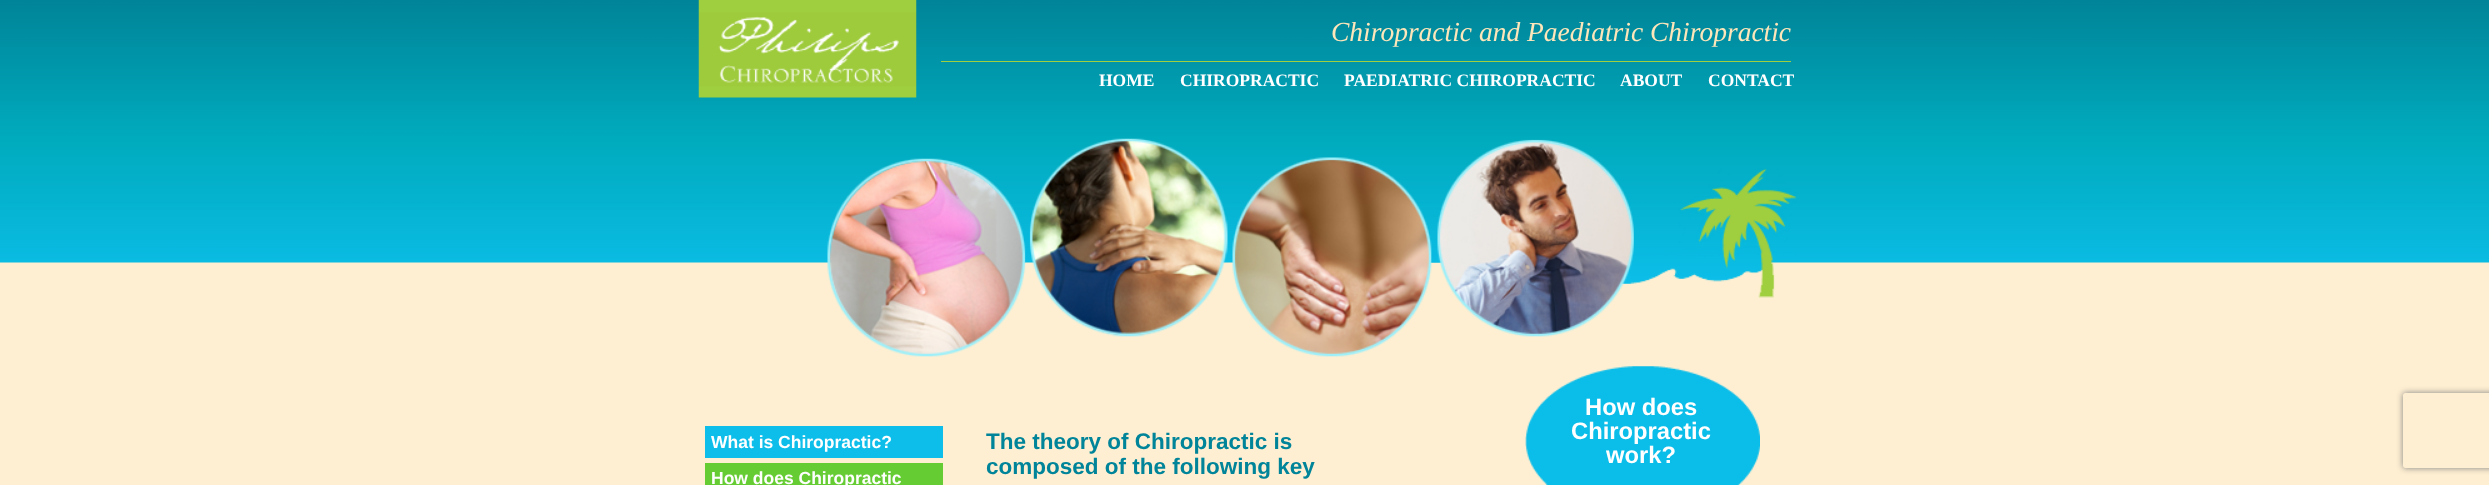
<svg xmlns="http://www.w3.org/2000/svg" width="2489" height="485">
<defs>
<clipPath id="clip1"><path d="M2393 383h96v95h-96zm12.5 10h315c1.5 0 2.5 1 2.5 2.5v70c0 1.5-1 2.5-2.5 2.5h-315c-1.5 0-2.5-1-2.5-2.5v-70c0-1.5 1-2.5 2.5-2.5z" clip-rule="evenodd"/></clipPath>
</defs>
<rect width="100%" height="100%" fill="#feefd2"/>
<image x="0" y="0" width="2489" height="263" href="media/1.png"/>
<image x="698" y="0" width="219" height="98" href="media/2.png"/>
<text x="1331" y="41" style="font-family:Liberation Serif;font-size:27.5px;font-style:italic;fill:#fde6b9">Chiropractic and Paediatric Chiropractic</text>
<rect x="941" y="61" width="850" height="1" fill="#9fce3f"/>
<text x="1099" y="86" style="font-family:Liberation Serif;font-size:17.5px;font-weight:bold;fill:#fff">HOME</text>
<text x="1180" y="86" style="font-family:Liberation Serif;font-size:17.5px;font-weight:bold;fill:#fff">CHIROPRACTIC</text>
<text x="1344" y="86" style="font-family:Liberation Serif;font-size:17.5px;font-weight:bold;fill:#fff">PAEDIATRIC CHIROPRACTIC</text>
<text x="1620" y="86" style="font-family:Liberation Serif;font-size:17.5px;font-weight:bold;fill:#fff">ABOUT</text>
<text x="1708" y="86" style="font-family:Liberation Serif;font-size:17.5px;font-weight:bold;fill:#fff">CONTACT</text>
<image x="827" y="138" width="970" height="219" href="media/3.png"/>
<rect x="705" y="426" width="238" height="32" fill="#0cbee9"/>
<text x="711" y="448" style="font-family:Liberation Sans;font-size:17.5px;font-weight:bold;fill:#fff">What is Chiropractic?</text>
<rect x="705" y="463" width="238" height="22" fill="#6c3"/>
<text x="711" y="484" style="font-family:Liberation Sans;font-size:17.5px;font-weight:bold;fill:#fff">How does Chiropractic</text>
<text x="986" y="449" style="font-family:Liberation Sans;font-size:22.5px;font-weight:bold;fill:#008499">The theory of Chiropractic is</text>
<text x="986" y="474" style="font-family:Liberation Sans;font-size:22.5px;font-weight:bold;fill:#008499">composed of the following key</text>
<image x="1525" y="366" width="235" height="119" href="media/4.png"/>
<text x="1585" y="415" style="font-family:Liberation Sans;font-size:23.75px;font-weight:bold;fill:#fff">How does</text>
<text x="1571" y="439" style="font-family:Liberation Sans;font-size:23.75px;font-weight:bold;fill:#fff">Chiropractic</text>
<text x="1606" y="463" style="font-family:Liberation Sans;font-size:23.75px;font-weight:bold;fill:#fff">work?</text>
<g clip-path="url(#clip1)">
<rect x="2403" y="393" width="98" height="75" rx="2.5" fill="#808080" filter="blur(3px)"/>
</g>
</svg>
